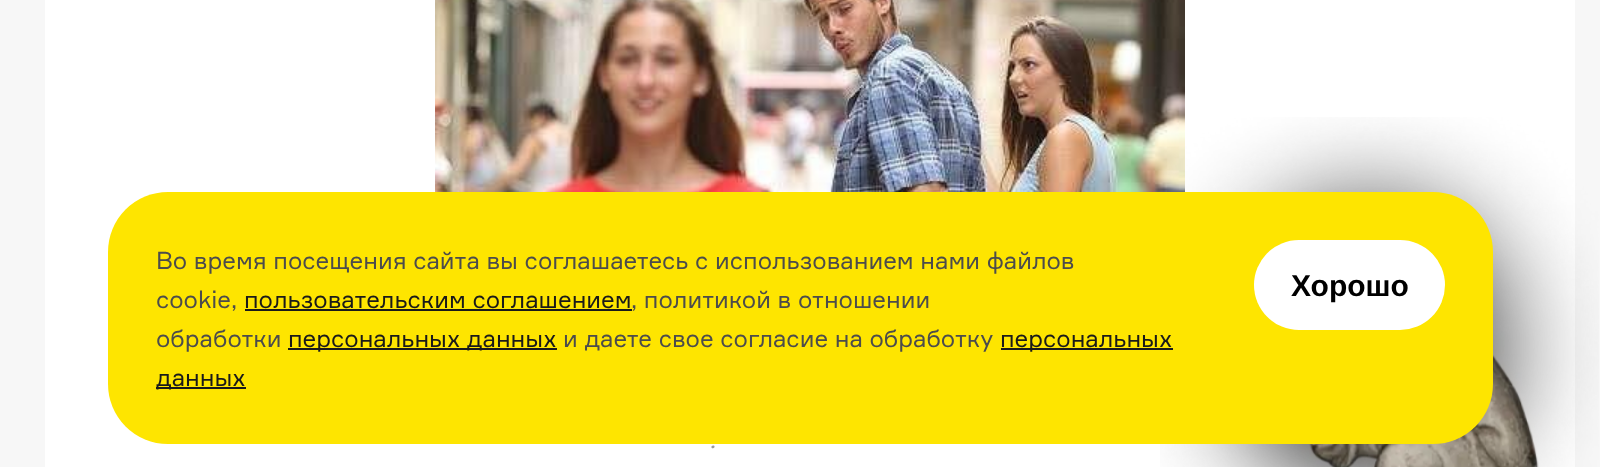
<svg xmlns="http://www.w3.org/2000/svg" width="1600" height="467">
<rect width="100%" height="100%" fill="#f7f7f7"/>
<rect x="45" width="1530" height="467" fill="#fff"/>
<image x="435" y="0" width="750" height="192" href="media/2.png"/>
<image x="1160" y="117" width="439" height="350" href="media/1.png"/>
<rect x="108" y="192" width="1385" height="252" rx="60" fill="#fee500"/>
<text x="156" y="269" style="font-family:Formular;font-size:24px;fill:#4c4c4c">Во время посещения сайта вы соглашаетесь с использованием нами файлов</text>
<text x="156" y="308" style="font-family:Formular;font-size:24px;fill:#4c4c4c">cookie,</text>
<text x="244" y="308" style="font-family:Formular;font-size:24px;fill:#1a1a1a">пользовательским соглашением</text>
<rect x="245" y="309" width="387" height="2" fill="#1a1a1a"/>
<text x="631" y="308" style="font-family:Formular;font-size:24px;fill:#4c4c4c">, политикой в отношении</text>
<text x="156" y="347" style="font-family:Formular;font-size:24px;fill:#4c4c4c">обработки</text>
<rect x="288" y="348" width="269" height="2" fill="#1a1a1a"/>
<text x="288" y="347" style="font-family:Formular;font-size:24px;fill:#1a1a1a">персональных данных</text>
<text x="563" y="347" style="font-family:Formular;font-size:24px;fill:#4c4c4c">и даете свое согласие на обработку</text>
<rect x="1001" y="348" width="172" height="2" fill="#1a1a1a"/>
<text x="1000" y="347" style="font-family:Formular;font-size:24px;fill:#1a1a1a">персональных</text>
<rect x="156" y="387" width="90" height="2" fill="#1a1a1a"/>
<text x="156" y="386" style="font-family:Formular;font-size:24px;fill:#1a1a1a">данных</text>
<rect x="1254" y="240" width="191" height="90" rx="45" fill="#fff"/>
<text x="1291" y="296" style="font-family:Liberation Sans;font-size:30px;font-weight:bold;fill:#000">Хорошо</text>
<text x="711" y="448" style="font-family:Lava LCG;font-size:20px;font-style:italic;fill:#999">.</text>
</svg>
